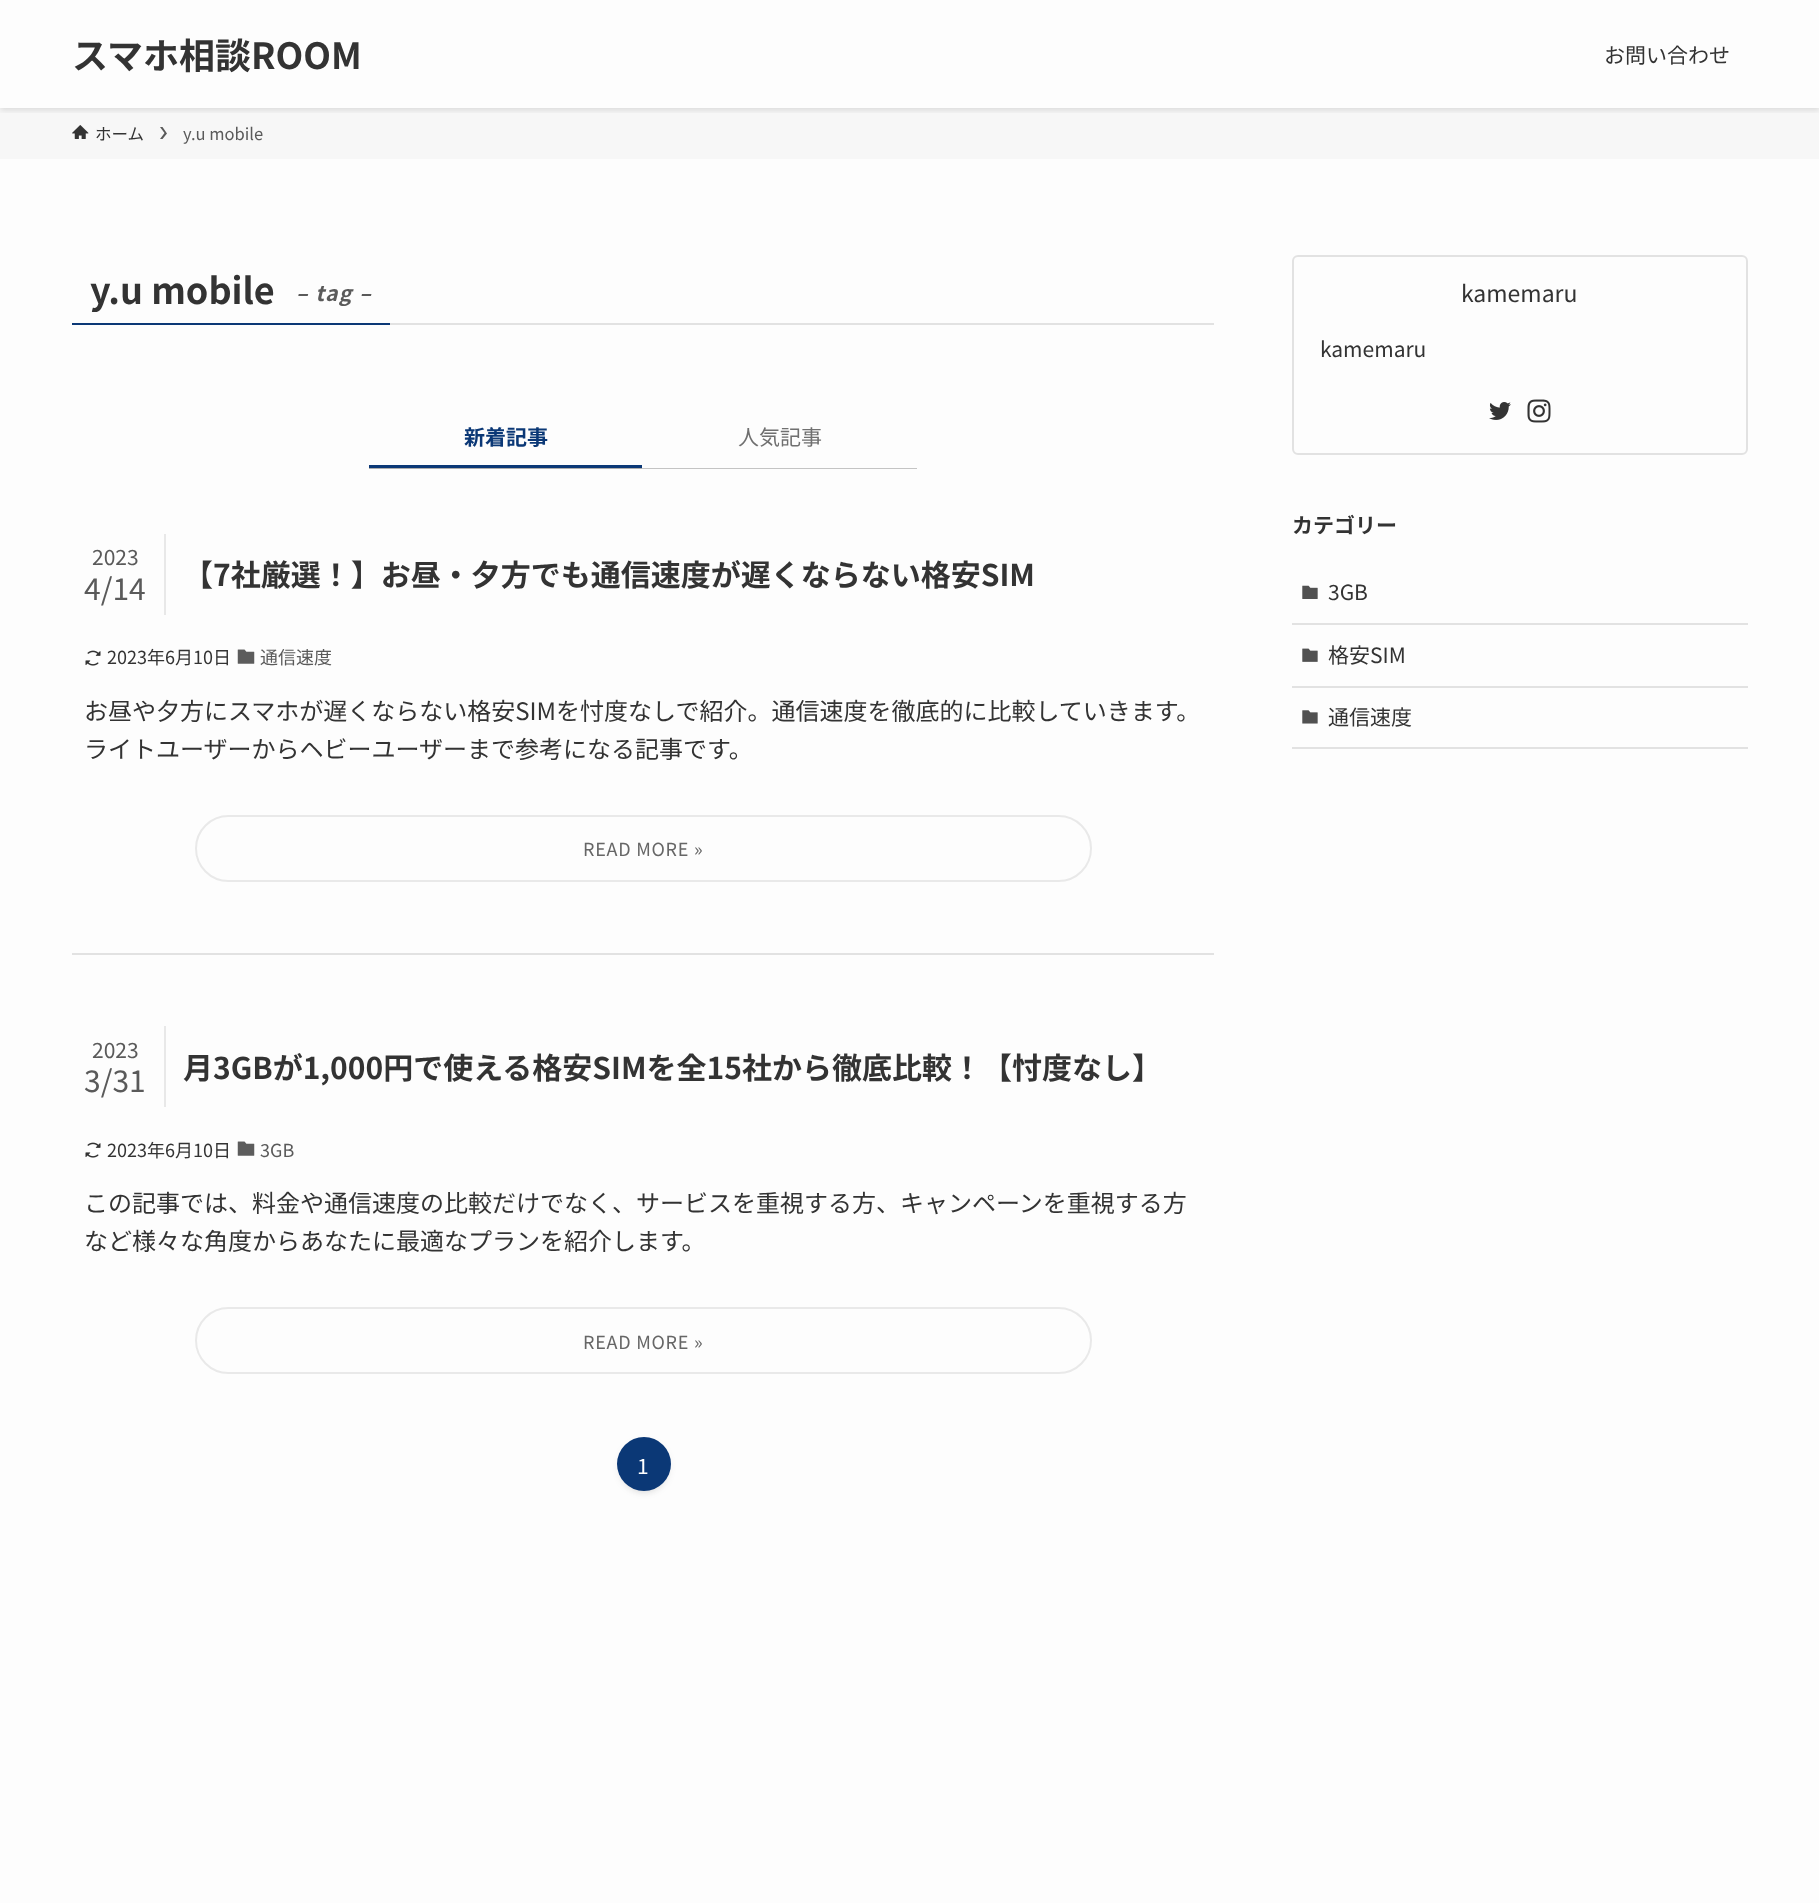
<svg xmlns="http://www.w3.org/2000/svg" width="1819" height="1903">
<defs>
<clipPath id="clip1"><rect x="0" y="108" width="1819" height="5"/></clipPath>
</defs>
<rect width="100%" height="100%" fill="#fdfdfd"/>
<rect y="108" width="1819" height="51" fill="#f7f7f7"/>
<g clip-path="url(#clip1)">
<rect y="2" width="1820" height="108" fill="#0000001f" filter="blur(3px)"/>
</g>
<text x="72" y="69" style="font-family:Noto Sans JP;font-size:36px;font-weight:bold;fill:#333">スマホ相談ROOM</text>
<text x="1604" y="63" style="font-family:Noto Sans JP;font-size:21px;fill:#333">お問い合わせ</text>
<image x="72" y="125" width="17" height="14" href="media/1.png"/>
<text x="95" y="140" style="font-family:Noto Sans JP;font-size:16.5px;fill:#333">ホーム</text>
<path d="M162.5 127h-2.5l4.5 6l-4.5 6h2.5l4.5-5.5z" fill="#5a5a5a"/>
<text x="183" y="140" style="font-family:Noto Sans JP;font-size:16.5px;fill:#5a5a5a">y.u mobile</text>
<rect x="390" y="323" width="824" height="2" fill="#e2e2e2"/>
<rect x="72" y="323" width="318" height="2" fill="#0b3876"/>
<text x="90" y="304" style="font-family:Noto Sans JP;font-size:36px;font-weight:bold;fill:#333">y.u mobile</text>
<text x="296" y="301" style="font-family:Noto Sans JP;font-size:21px;font-weight:bold;font-style:italic;letter-spacing:1.5px;fill:#5a5a5a">– tag –</text>
<text x="464" y="445" style="font-family:Noto Sans JP;font-size:21px;font-weight:bold;fill:#0b3876">新着記事</text>
<rect x="369" y="465" width="273" height="3" fill="#0b3876"/>
<rect x="369" y="468" width="273" height="1" fill="#acacac"/>
<text x="738" y="445" style="font-family:Noto Sans JP;font-size:21px;fill:#707070">人気記事</text>
<rect x="642" y="468" width="275" height="1" fill="#c4c4c4"/>
<rect x="72" y="953" width="1142" height="2" fill="#e2e2e2"/>
<rect x="164" y="534" width="2" height="81" fill="#e8e8e8"/>
<text x="92" y="565" style="font-family:Noto Sans JP;font-size:21px;fill:#5a5a5a">2023</text>
<text x="84" y="600" style="font-family:Noto Sans JP;font-size:30px;fill:#5a5a5a">4/14</text>
<text x="183" y="586" style="font-family:Noto Sans JP;font-size:30px;font-weight:bold;fill:#333">【7社厳選！】お昼・夕方でも通信速度が遅くならない格安SIM</text>
<image x="85" y="650" width="16" height="16" href="media/2.png"/>
<text x="107" y="664" style="font-family:Noto Sans JP;font-size:18px;fill:#333">2023年6月10日</text>
<image x="237" y="649" width="18" height="15" href="media/3.png"/>
<text x="260" y="664" style="font-family:Noto Sans JP;font-size:18px;fill:#5a5a5a">通信速度</text>
<text x="84" y="720" style="font-family:Noto Sans JP;font-size:24px;fill:#333">お昼や夕方にスマホが遅くならない格安SIMを忖度なしで紹介。通信速度を徹底的に比較していきます。</text>
<text x="84" y="758" style="font-family:Noto Sans JP;font-size:24px;fill:#333">ライトユーザーからヘビーユーザーまで参考になる記事です。</text>
<rect x="196" y="816" width="895" height="65" rx="32.5" fill="none" stroke="#e9e9e9" stroke-width="2"/>
<text x="583" y="856" style="font-family:Noto Sans JP;font-size:18px;letter-spacing:0.75px;fill:#666">READ MORE »</text>
<rect x="164" y="1026" width="2" height="81" fill="#e8e8e8"/>
<text x="92" y="1058" style="font-family:Noto Sans JP;font-size:21px;fill:#5a5a5a">2023</text>
<text x="84" y="1092" style="font-family:Noto Sans JP;font-size:30px;fill:#5a5a5a">3/31</text>
<text x="183" y="1079" style="font-family:Noto Sans JP;font-size:30px;font-weight:bold;fill:#333">月3GBが1,000円で使える格安SIMを全15社から徹底比較！【忖度なし】</text>
<image x="85" y="1142" width="16" height="16" href="media/2.png"/>
<text x="107" y="1157" style="font-family:Noto Sans JP;font-size:18px;fill:#333">2023年6月10日</text>
<image x="237" y="1141" width="18" height="15" href="media/3.png"/>
<text x="260" y="1157" style="font-family:Noto Sans JP;font-size:18px;fill:#5a5a5a">3GB</text>
<text x="84" y="1212" style="font-family:Noto Sans JP;font-size:24px;fill:#333">この記事では、料金や通信速度の比較だけでなく、サービスを重視する方、キャンペーンを重視する方</text>
<text x="84" y="1250" style="font-family:Noto Sans JP;font-size:24px;fill:#333">など様々な角度からあなたに最適なプランを紹介します。</text>
<rect x="196" y="1308" width="895" height="65" rx="32.5" fill="none" stroke="#e9e9e9" stroke-width="2"/>
<text x="583" y="1349" style="font-family:Noto Sans JP;font-size:18px;letter-spacing:0.75px;fill:#666">READ MORE »</text>
<rect x="623" y="1449" width="42" height="42" rx="21" fill="#0000001a" filter="blur(3px)"/>
<rect x="617" y="1440" width="54" height="54" rx="27" fill="#0000000d" filter="blur(3px)"/>
<circle cx="644" cy="1464" r="27" fill="#0b3876"/>
<text x="637" y="1474" style="font-family:Noto Sans JP;font-size:21px;fill:#fff">1</text>
<rect x="1293" y="256" width="454" height="198" rx="5" fill="none" stroke="#e2e2e2" stroke-width="2"/>
<text x="1461" y="302" style="font-family:Noto Sans JP;font-size:23px;fill:#333">kamemaru</text>
<text x="1320" y="357" style="font-family:Noto Sans JP;font-size:21px;fill:#333">kamemaru</text>
<image x="1489" y="402" width="22" height="18" href="media/4.png"/>
<image x="1527" y="399" width="24" height="24" href="media/5.png"/>
<text x="1292" y="533" style="font-family:Noto Sans JP;font-size:21px;font-weight:bold;fill:#333">カテゴリー</text>
<rect x="1292" y="623" width="456" height="2" fill="#e2e2e2"/>
<image x="1302" y="585" width="16" height="14" href="media/6.png"/>
<text x="1328" y="600" style="font-family:Noto Sans JP;font-size:21px;fill:#333">3GB</text>
<rect x="1292" y="686" width="456" height="2" fill="#e2e2e2"/>
<image x="1302" y="648" width="16" height="14" href="media/7.png"/>
<text x="1328" y="663" style="font-family:Noto Sans JP;font-size:21px;fill:#333">格安SIM</text>
<rect x="1292" y="747" width="456" height="2" fill="#e2e2e2"/>
<image x="1302" y="710" width="16" height="14" href="media/8.png"/>
<text x="1328" y="725" style="font-family:Noto Sans JP;font-size:21px;fill:#333">通信速度</text>
</svg>
